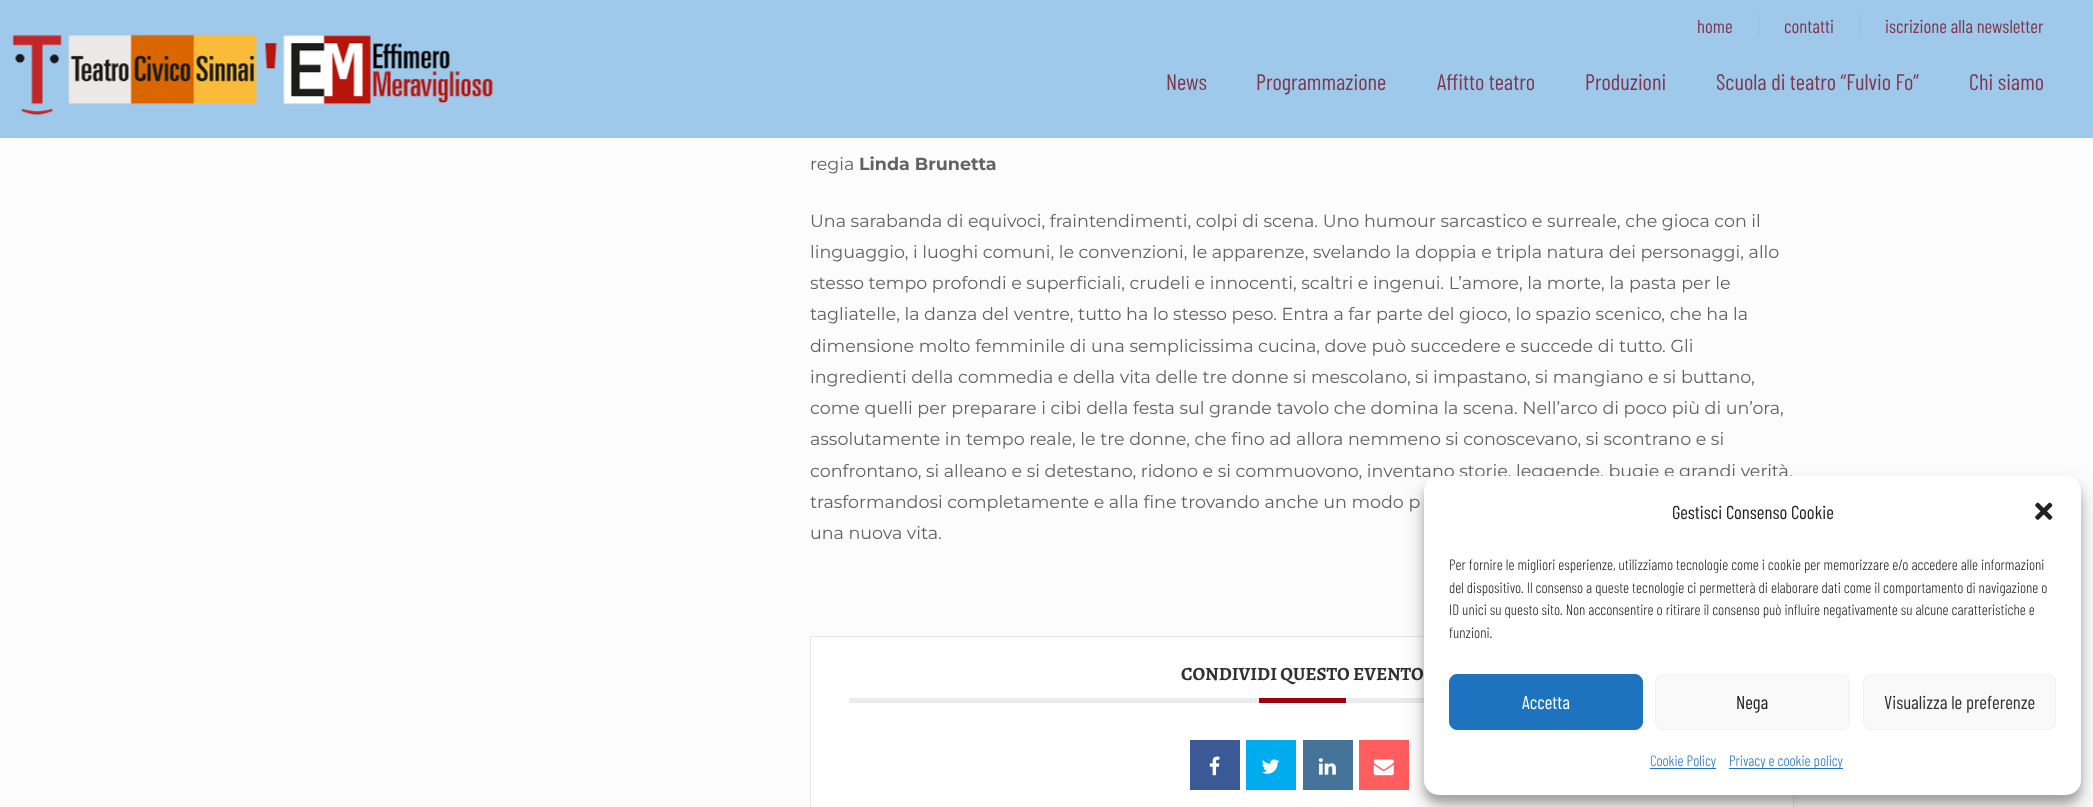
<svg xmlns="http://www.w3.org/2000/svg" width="2093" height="807">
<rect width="100%" height="100%" fill="#fcfcfc"/>
<rect width="2093" height="138" fill="#9fc9eb"/>
<rect x="1758" y="13" width="1" height="25" fill="#97bfdf"/>
<text x="1697" y="33" style="font-family:Barlow Condensed;font-size:18.75px;fill:#7e384d">home</text>
<rect x="1859" y="13" width="1" height="25" fill="#97bfdf"/>
<text x="1784" y="33" style="font-family:Barlow Condensed;font-size:18.75px;fill:#7e384d">contatti</text>
<text x="1885" y="33" style="font-family:Barlow Condensed;font-size:18.75px;fill:#7e384d">iscrizione alla newsletter</text>
<image x="12" y="34" width="481" height="82" href="media/1.png"/>
<text x="1166" y="90" style="font-family:Barlow Condensed;font-size:22.5px;fill:#7e384d">News</text>
<text x="1256" y="90" style="font-family:Barlow Condensed;font-size:22.5px;fill:#7e384d">Programmazione</text>
<text x="1437" y="90" style="font-family:Barlow Condensed;font-size:22.5px;fill:#7e384d">Affitto teatro</text>
<text x="1585" y="90" style="font-family:Barlow Condensed;font-size:22.5px;fill:#7e384d">Produzioni</text>
<text x="1716" y="90" style="font-family:Barlow Condensed;font-size:22.5px;fill:#7e384d">Scuola di teatro “Fulvio Fo”</text>
<text x="1969" y="90" style="font-family:Barlow Condensed;font-size:22.5px;fill:#7e384d">Chi siamo</text>
<text x="810" y="170" style="font-family:Montserrat;font-size:17.5px;fill:#626262">regia</text>
<text x="859" y="170" style="font-family:Montserrat;font-size:17.5px;font-weight:bold;fill:#626262">Linda Brunetta</text>
<text x="810" y="227" style="font-family:Montserrat;font-size:17.5px;fill:#626262">Una sarabanda di equivoci, fraintendimenti, colpi di scena. Uno humour sarcastico e surreale, che gioca con il</text>
<text x="810" y="258" style="font-family:Montserrat;font-size:17.5px;fill:#626262">linguaggio, i luoghi comuni, le convenzioni, le apparenze, svelando la doppia e tripla natura dei personaggi, allo</text>
<text x="810" y="289" style="font-family:Montserrat;font-size:17.5px;fill:#626262">stesso tempo profondi e superficiali, crudeli e innocenti, scaltri e ingenui. L’amore, la morte, la pasta per le</text>
<text x="810" y="320" style="font-family:Montserrat;font-size:17.5px;fill:#626262">tagliatelle, la danza del ventre, tutto ha lo stesso peso. Entra a far parte del gioco, lo spazio scenico, che ha la</text>
<text x="810" y="352" style="font-family:Montserrat;font-size:17.5px;fill:#626262">dimensione molto femminile di una semplicissima cucina, dove può succedere e succede di tutto. Gli</text>
<text x="810" y="383" style="font-family:Montserrat;font-size:17.5px;fill:#626262">ingredienti della commedia e della vita delle tre donne si mescolano, si impastano, si mangiano e si buttano,</text>
<text x="810" y="414" style="font-family:Montserrat;font-size:17.5px;fill:#626262">come quelli per preparare i cibi della festa sul grande tavolo che domina la scena. Nell’arco di poco più di un’ora,</text>
<text x="810" y="445" style="font-family:Montserrat;font-size:17.5px;fill:#626262">assolutamente in tempo reale, le tre donne, che fino ad allora nemmeno si conoscevano, si scontrano e si</text>
<text x="810" y="477" style="font-family:Montserrat;font-size:17.5px;fill:#626262">confrontano, si alleano e si detestano, ridono e si commuovono, inventano storie, leggende, bugie e grandi verità,</text>
<text x="810" y="508" style="font-family:Montserrat;font-size:17.5px;fill:#626262">trasformandosi completamente e alla fine trovando anche un modo p</text>
<text x="810" y="539" style="font-family:Montserrat;font-size:17.5px;fill:#626262">una nuova vita.</text>
<rect x="810.5" y="636.5" width="983" height="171" fill="#fff" stroke="#e6e6e6"/>
<rect x="849" y="698" width="575" height="5" fill="#ebebeb"/>
<text x="1181" y="680" style="font-family:Alegreya;font-size:18.75px;font-weight:bold;fill:#313131">CONDIVIDI QUESTO EVENTO</text>
<rect x="1259" y="698" width="87" height="5" fill="#9f0012"/>
<rect x="1190" y="740" width="50" height="50" fill="#3b5996"/>
<image x="1209" y="756" width="11" height="20" href="media/2.png"/>
<rect x="1246" y="740" width="50" height="50" fill="#00acee"/>
<image x="1262" y="759" width="18" height="15" href="media/3.png"/>
<rect x="1303" y="740" width="50" height="50" fill="#457399"/>
<image x="1318" y="758" width="18" height="17" href="media/4.png"/>
<rect x="1359" y="740" width="50" height="50" fill="#ff5d5e"/>
<image x="1373" y="759" width="21" height="17" href="media/5.png"/>
<rect x="1424" y="484" width="657" height="319" rx="15" fill="#0000003b" filter="blur(4px)"/>
<rect x="1424" y="489" width="657" height="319" rx="15" fill="#00000030" filter="blur(12.5px)"/>
<rect x="1424" y="476" width="657" height="319" rx="15" fill="#fff"/>
<text x="1672" y="519" style="font-family:Barlow Condensed;font-size:18.75px;fill:#222">Gestisci Consenso Cookie</text>
<image x="2035" y="502" width="18" height="18" href="media/6.png"/>
<text x="1449" y="570" style="font-family:Barlow Condensed;font-size:15px;font-weight:300;fill:#222">Per fornire le migliori esperienze, utilizziamo tecnologie come i cookie per memorizzare e/o accedere alle informazioni</text>
<text x="1449" y="593" style="font-family:Barlow Condensed;font-size:15px;font-weight:300;fill:#222">del dispositivo. Il consenso a queste tecnologie ci permetterà di elaborare dati come il comportamento di navigazione o</text>
<text x="1449" y="615" style="font-family:Barlow Condensed;font-size:15px;font-weight:300;fill:#222">ID unici su questo sito. Non acconsentire o ritirare il consenso può influire negativamente su alcune caratteristiche e</text>
<text x="1449" y="638" style="font-family:Barlow Condensed;font-size:15px;font-weight:300;fill:#222">funzioni.</text>
<rect x="1449.5" y="674.5" width="193" height="55" rx="7.5" fill="#1e73be" stroke="#1e73be"/>
<text x="1522" y="709" style="font-family:Barlow Condensed;font-size:18.75px;fill:#fff">Accetta</text>
<rect x="1655.5" y="674.5" width="194" height="55" rx="7.5" fill="#f9f9f9" stroke="#f2f2f2"/>
<text x="1736" y="709" style="font-family:Barlow Condensed;font-size:18.75px;fill:#222">Nega</text>
<rect x="1863.5" y="674.5" width="192" height="55" rx="7.5" fill="#f9f9f9" stroke="#f2f2f2"/>
<text x="1884" y="709" style="font-family:Barlow Condensed;font-size:18.75px;fill:#313131">Visualizza le preferenze</text>
<rect x="1650" y="768" width="66" height="1" fill="#1e73be"/>
<text x="1650" y="766" style="font-family:Barlow Condensed;font-size:15px;font-weight:300;fill:#1e73be">Cookie Policy</text>
<rect x="1729" y="768" width="114" height="1" fill="#1e73be"/>
<text x="1729" y="766" style="font-family:Barlow Condensed;font-size:15px;font-weight:300;fill:#1e73be">Privacy e cookie policy</text>
</svg>
